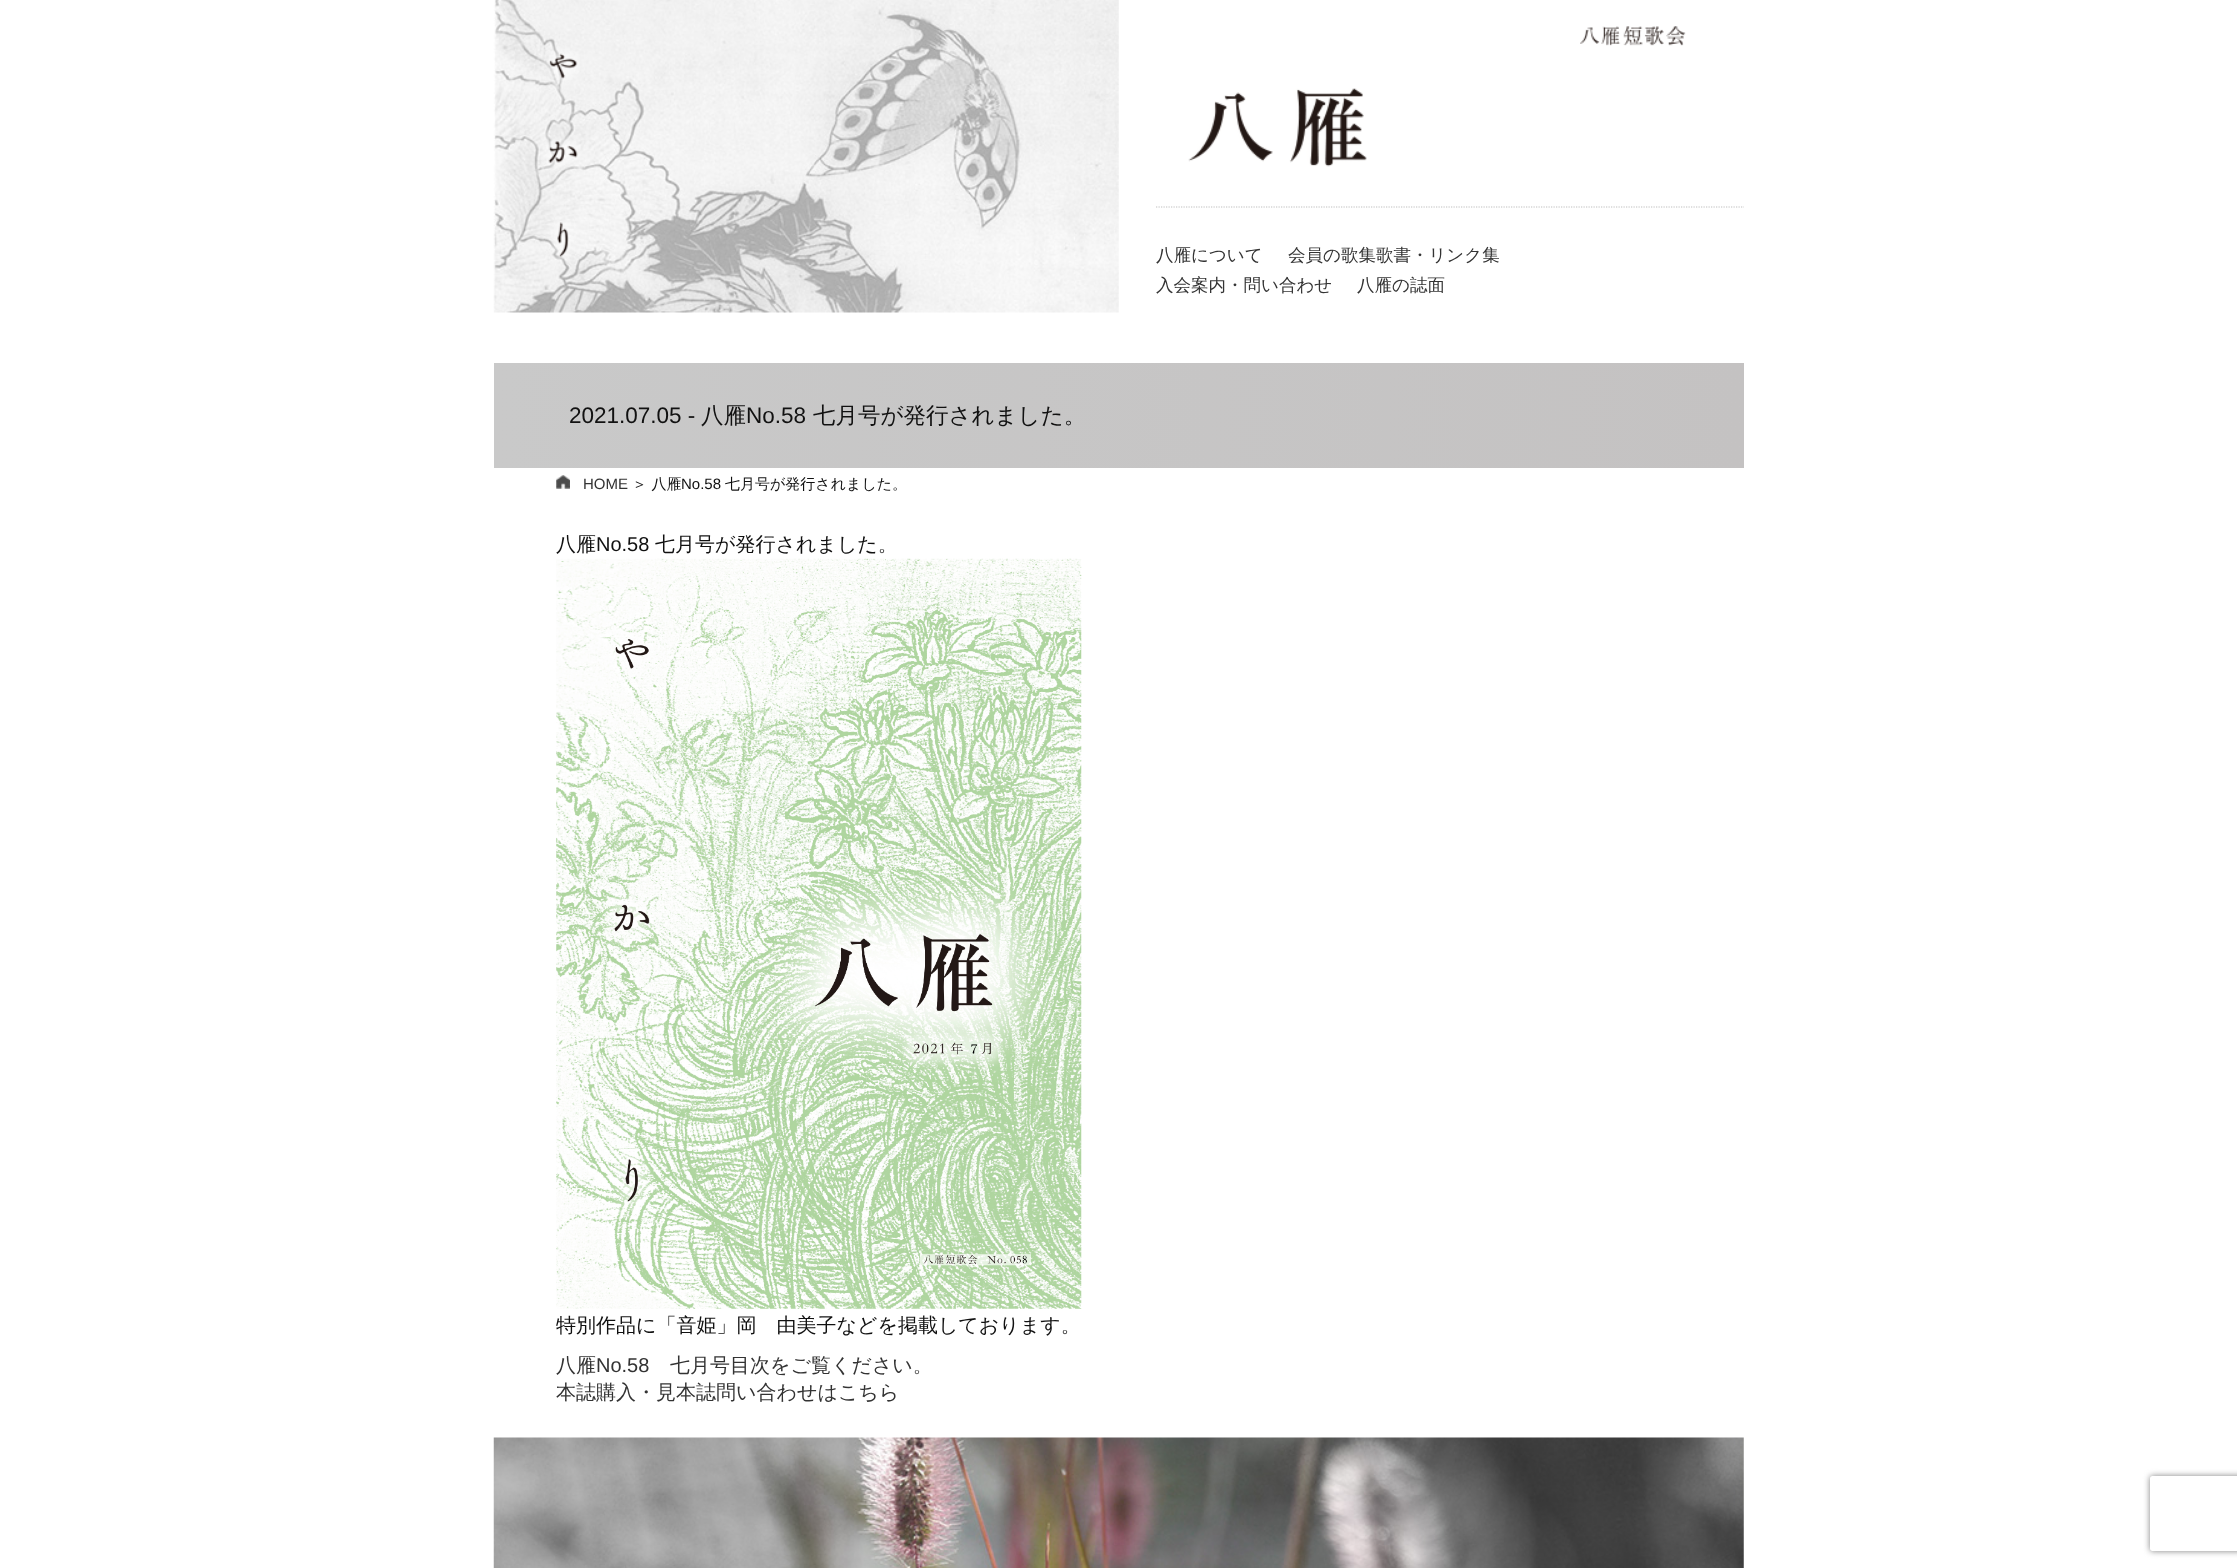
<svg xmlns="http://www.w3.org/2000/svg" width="2237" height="1568">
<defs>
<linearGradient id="g1" gradientUnits="userSpaceOnUse" x1="494" y1="415" x2="1744" y2="415"><stop offset="0" stop-color="#c9c9c9"/><stop offset="1" stop-color="#c4c2c2"/></linearGradient>
<clipPath id="clip1"><path d="M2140 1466h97v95h-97zm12.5 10h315c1.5 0 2.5 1 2.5 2.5v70c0 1.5-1 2.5-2.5 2.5h-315c-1.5 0-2.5-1-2.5-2.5v-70c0-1.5 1-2.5 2.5-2.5z" clip-rule="evenodd"/></clipPath>
</defs>
<rect width="100%" height="100%" fill="#fff"/>
<image x="493" y="0" width="626" height="313" href="media/1.png"/>
<image x="541" y="46" width="39" height="219" href="media/2.png"/>
<image x="1580" y="26" width="106" height="20" href="media/3.png"/>
<image x="1188" y="88" width="179" height="79" href="media/4.png"/>
<path d="M1156 207h588" fill="none" stroke="#bfbfbf" stroke-width="1.2" stroke-dasharray="1.25 1.25"/>
<text x="1156" y="261" style="font-family:WenQuanYi Zen Hei;font-size:17.5px;font-weight:500;fill:#333">八雁について</text>
<text x="1288" y="261" style="font-family:WenQuanYi Zen Hei;font-size:17.5px;font-weight:500;fill:#333">会員の歌集歌書・リンク集</text>
<text x="1156" y="291" style="font-family:WenQuanYi Zen Hei;font-size:17.5px;font-weight:500;fill:#333">入会案内・問い合わせ</text>
<text x="1357" y="291" style="font-family:WenQuanYi Zen Hei;font-size:17.5px;font-weight:500;fill:#333">八雁の誌面</text>
<rect x="494" y="363" width="1250" height="105" fill="url(#g1)"/>
<text x="569" y="423" style="font-family:Liberation Sans;font-size:22.5px;fill:#111">2021.07.05 -</text>
<text x="701" y="423" style="font-family:WenQuanYi Zen Hei;font-size:22.5px;font-weight:500;fill:#111">八雁</text>
<text x="746" y="423" style="font-family:Liberation Sans;font-size:22.5px;fill:#111">No.58</text>
<text x="813" y="423" style="font-family:WenQuanYi Zen Hei;font-size:22.5px;font-weight:500;fill:#111">七月号が発行されました。</text>
<image x="556" y="475" width="14" height="14" href="media/5.png"/>
<text x="583" y="489" style="font-family:Liberation Sans;font-size:15px;fill:#333">HOME</text>
<text x="632" y="489" style="font-family:WenQuanYi Zen Hei;font-size:15px;font-weight:500;fill:#111">＞ 八雁</text>
<text x="681" y="489" style="font-family:Liberation Sans;font-size:15px;fill:#111">No.58</text>
<text x="725" y="489" style="font-family:WenQuanYi Zen Hei;font-size:15px;font-weight:500;fill:#111">七月号が発行されました。</text>
<text x="556" y="551" style="font-family:WenQuanYi Zen Hei;font-size:20px;font-weight:500;fill:#111">八雁</text>
<text x="596" y="551" style="font-family:Liberation Sans;font-size:20px;fill:#111">No.58</text>
<text x="655" y="551" style="font-family:WenQuanYi Zen Hei;font-size:20px;font-weight:500;fill:#111">七月号が発行されました。</text>
<image x="556" y="558" width="526" height="751" href="media/6.png"/>
<text x="556" y="1332" style="font-family:WenQuanYi Zen Hei;font-size:20px;font-weight:500;fill:#111">特別作品に「音姫」岡　由美子などを掲載しております。</text>
<text x="556" y="1372" style="font-family:WenQuanYi Zen Hei;font-size:20px;font-weight:500;fill:#333">八雁</text>
<text x="596" y="1372" style="font-family:Liberation Sans;font-size:20px;fill:#333">No.58</text>
<text x="670" y="1372" style="font-family:WenQuanYi Zen Hei;font-size:20px;font-weight:500;fill:#333">七月号目次をご覧ください。</text>
<text x="556" y="1399" style="font-family:WenQuanYi Zen Hei;font-size:20px;font-weight:500;fill:#333">本誌購入・見本誌問い合わせはこちら</text>
<image x="493" y="1437" width="1251" height="131" href="media/7.png"/>
<g clip-path="url(#clip1)">
<rect x="2150" y="1476" width="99" height="75" rx="2.5" fill="#808080" filter="blur(3px)"/>
</g>
</svg>
